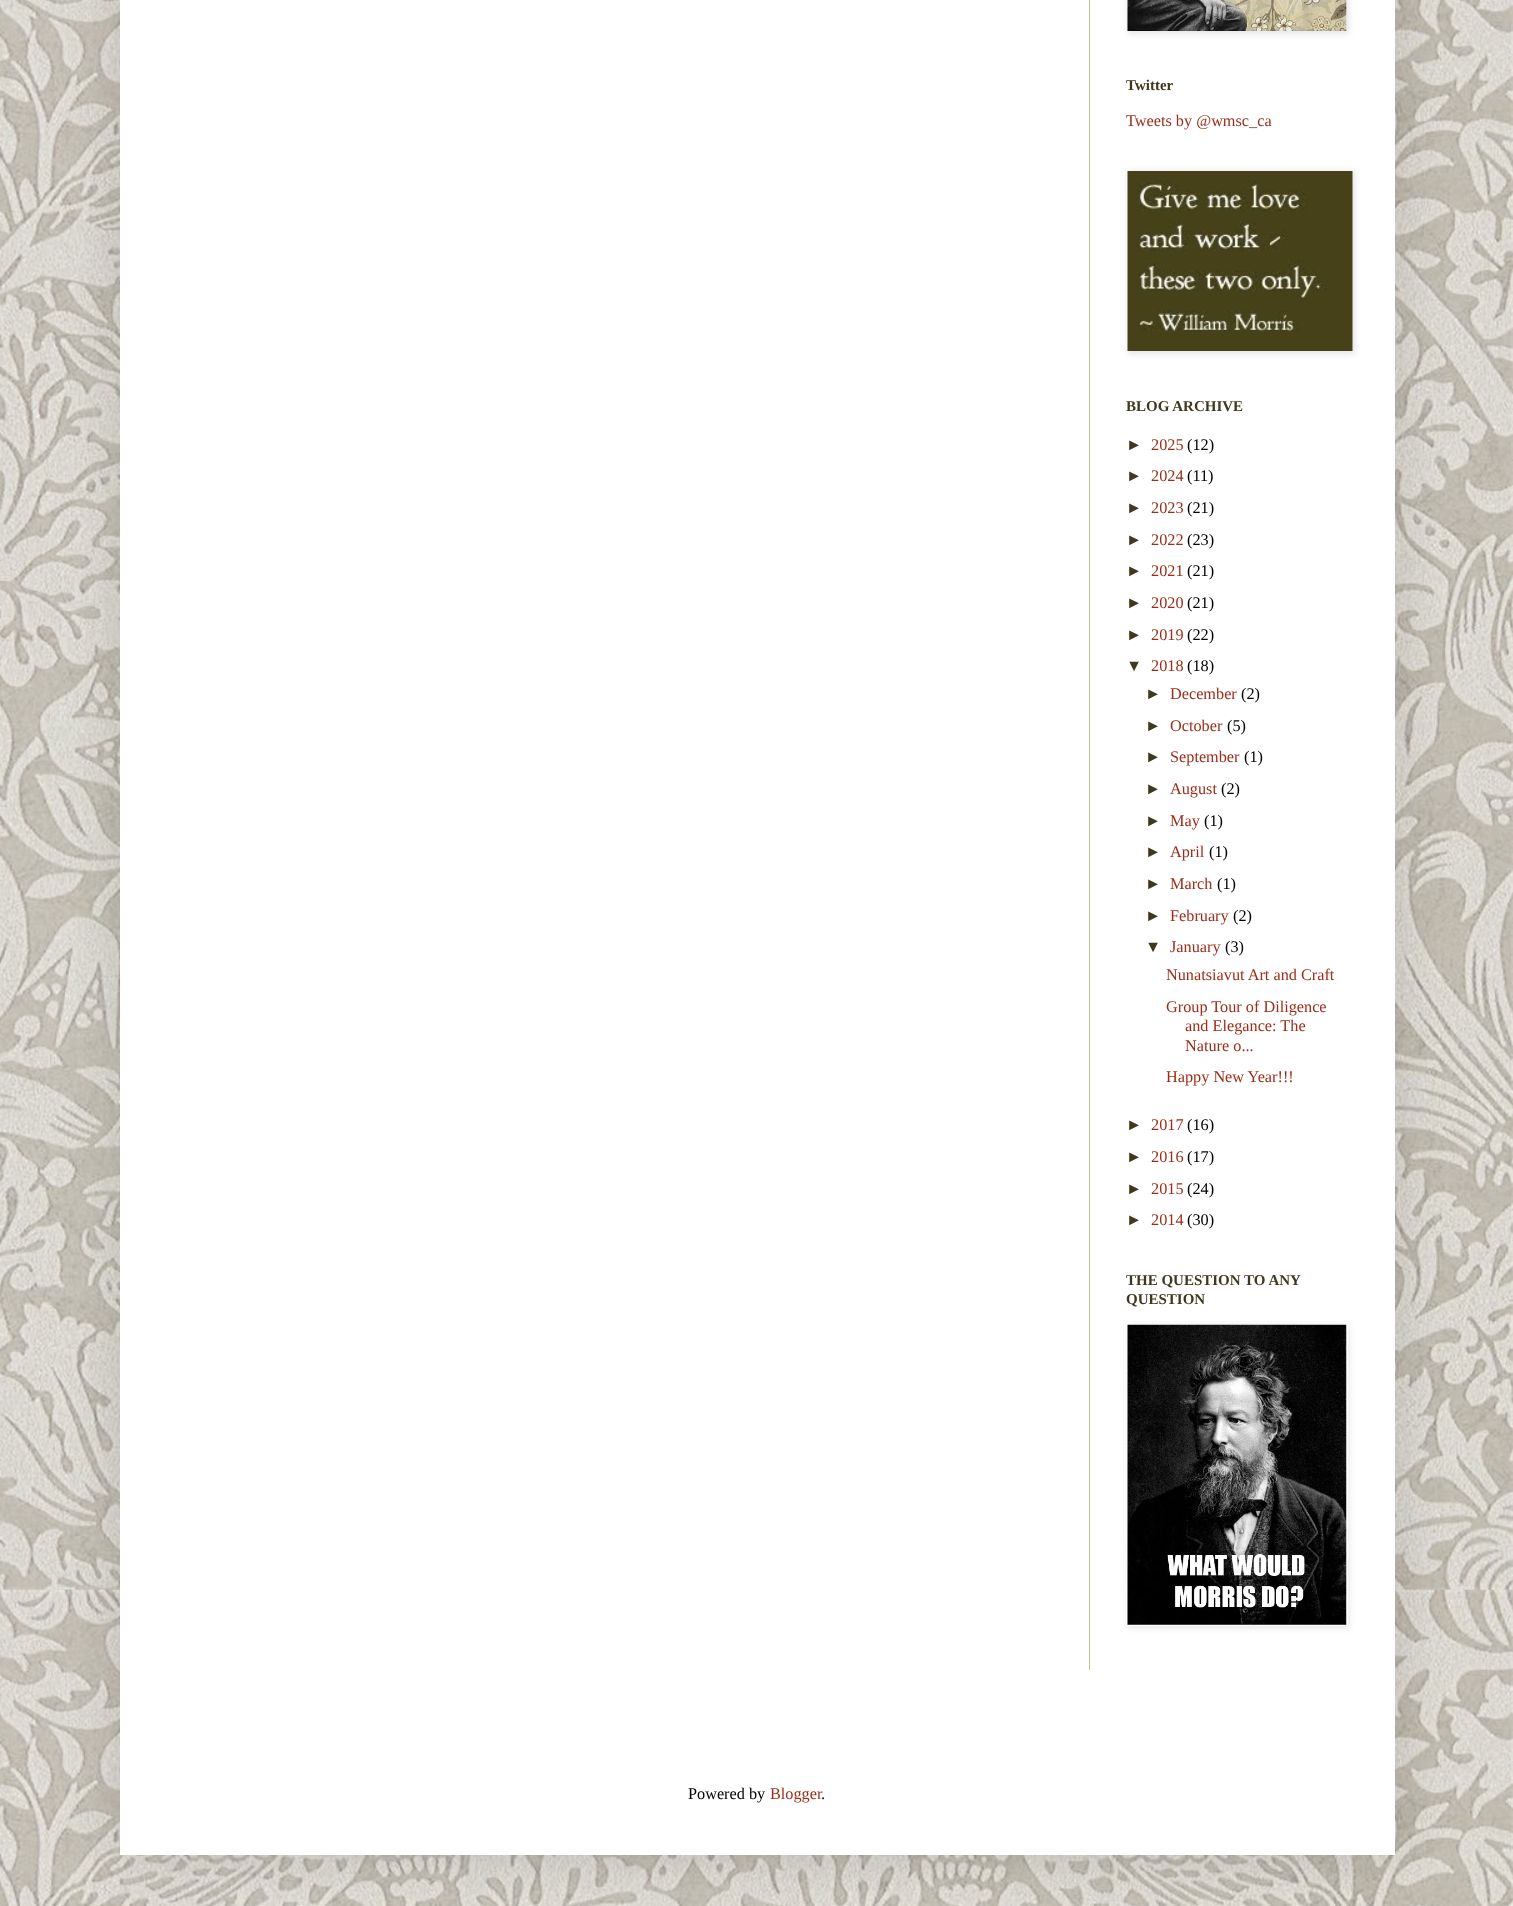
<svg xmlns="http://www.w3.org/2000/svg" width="1513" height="1906">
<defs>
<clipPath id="clip1"><path d="M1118 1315h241v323h-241zm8 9h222v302h-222z" clip-rule="evenodd"/></clipPath>
</defs>
<rect width="100%" height="100%" fill="#fff"/>
<image x="0" y="0" width="1513" height="1906" href="media/1.png"/>
<rect x="120" y="-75" width="1275" height="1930" fill="#00000026" filter="blur(25px)"/>
<rect x="120" width="1275" height="1855" fill="#fff"/>
<rect x="1089" width="1" height="1670" fill="#bcc786"/>
<rect x="1128" y="-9" width="221" height="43" fill="#0000001a" filter="blur(3px)"/>
<image x="1127" y="0" width="220" height="31" href="media/2.png"/>
<text x="1126" y="90" style="font-family:Liberation Serif;font-size:15px;font-weight:bold;fill:#3e391e">Twitter</text>
<text x="1126" y="126" style="font-family:Liberation Serif;font-size:16.25px;fill:#9c2e19">Tweets by @wmsc_ca</text>
<rect x="1128" y="171" width="227" height="183" fill="#0000001a" filter="blur(3px)"/>
<image x="1127" y="171" width="226" height="180" href="media/3.png"/>
<text x="1126" y="411" style="font-family:Liberation Serif;font-size:15px;font-weight:bold;fill:#3e391e">BLOG ARCHIVE</text>
<text x="1126" y="450" style="font-family:Liberation Sans;font-size:16.25px;fill:#3e391e">►</text>
<text x="1151" y="450" style="font-family:Liberation Serif;font-size:16.25px;fill:#9c2e19">2025</text>
<text x="1187" y="450" style="font-family:Liberation Serif;font-size:16.25px;fill:#000">(12)</text>
<text x="1126" y="481" style="font-family:Liberation Sans;font-size:16.25px;fill:#3e391e">►</text>
<text x="1151" y="481" style="font-family:Liberation Serif;font-size:16.25px;fill:#9c2e19">2024</text>
<text x="1187" y="481" style="font-family:Liberation Serif;font-size:16.25px;fill:#000">(11)</text>
<text x="1126" y="513" style="font-family:Liberation Sans;font-size:16.25px;fill:#3e391e">►</text>
<text x="1151" y="513" style="font-family:Liberation Serif;font-size:16.25px;fill:#9c2e19">2023</text>
<text x="1187" y="513" style="font-family:Liberation Serif;font-size:16.25px;fill:#000">(21)</text>
<text x="1126" y="545" style="font-family:Liberation Sans;font-size:16.25px;fill:#3e391e">►</text>
<text x="1151" y="545" style="font-family:Liberation Serif;font-size:16.25px;fill:#9c2e19">2022</text>
<text x="1187" y="545" style="font-family:Liberation Serif;font-size:16.25px;fill:#000">(23)</text>
<text x="1126" y="576" style="font-family:Liberation Sans;font-size:16.25px;fill:#3e391e">►</text>
<text x="1151" y="576" style="font-family:Liberation Serif;font-size:16.25px;fill:#9c2e19">2021</text>
<text x="1187" y="576" style="font-family:Liberation Serif;font-size:16.25px;fill:#000">(21)</text>
<text x="1126" y="608" style="font-family:Liberation Sans;font-size:16.25px;fill:#3e391e">►</text>
<text x="1151" y="608" style="font-family:Liberation Serif;font-size:16.25px;fill:#9c2e19">2020</text>
<text x="1187" y="608" style="font-family:Liberation Serif;font-size:16.25px;fill:#000">(21)</text>
<text x="1126" y="640" style="font-family:Liberation Sans;font-size:16.25px;fill:#3e391e">►</text>
<text x="1151" y="640" style="font-family:Liberation Serif;font-size:16.25px;fill:#9c2e19">2019</text>
<text x="1187" y="640" style="font-family:Liberation Serif;font-size:16.25px;fill:#000">(22)</text>
<text x="1126" y="671" style="font-family:Liberation Sans;font-size:16.25px;fill:#3e391e">▼</text>
<text x="1151" y="671" style="font-family:Liberation Serif;font-size:16.25px;fill:#9c2e19">2018</text>
<text x="1187" y="671" style="font-family:Liberation Serif;font-size:16.25px;fill:#000">(18)</text>
<text x="1145" y="699" style="font-family:Liberation Sans;font-size:16.25px;fill:#3e391e">►</text>
<text x="1170" y="699" style="font-family:Liberation Serif;font-size:16.25px;fill:#9c2e19">December</text>
<text x="1241" y="699" style="font-family:Liberation Serif;font-size:16.25px;fill:#000">(2)</text>
<text x="1145" y="731" style="font-family:Liberation Sans;font-size:16.25px;fill:#3e391e">►</text>
<text x="1170" y="731" style="font-family:Liberation Serif;font-size:16.25px;fill:#9c2e19">October</text>
<text x="1227" y="731" style="font-family:Liberation Serif;font-size:16.25px;fill:#000">(5)</text>
<text x="1145" y="762" style="font-family:Liberation Sans;font-size:16.25px;fill:#3e391e">►</text>
<text x="1170" y="762" style="font-family:Liberation Serif;font-size:16.25px;fill:#9c2e19">September</text>
<text x="1244" y="762" style="font-family:Liberation Serif;font-size:16.25px;fill:#000">(1)</text>
<text x="1145" y="794" style="font-family:Liberation Sans;font-size:16.25px;fill:#3e391e">►</text>
<text x="1170" y="794" style="font-family:Liberation Serif;font-size:16.25px;fill:#9c2e19">August</text>
<text x="1221" y="794" style="font-family:Liberation Serif;font-size:16.25px;fill:#000">(2)</text>
<text x="1145" y="826" style="font-family:Liberation Sans;font-size:16.25px;fill:#3e391e">►</text>
<text x="1170" y="826" style="font-family:Liberation Serif;font-size:16.25px;fill:#9c2e19">May</text>
<text x="1204" y="826" style="font-family:Liberation Serif;font-size:16.25px;fill:#000">(1)</text>
<text x="1145" y="857" style="font-family:Liberation Sans;font-size:16.25px;fill:#3e391e">►</text>
<text x="1170" y="857" style="font-family:Liberation Serif;font-size:16.25px;fill:#9c2e19">April</text>
<text x="1209" y="857" style="font-family:Liberation Serif;font-size:16.25px;fill:#000">(1)</text>
<text x="1145" y="889" style="font-family:Liberation Sans;font-size:16.25px;fill:#3e391e">►</text>
<text x="1170" y="889" style="font-family:Liberation Serif;font-size:16.25px;fill:#9c2e19">March</text>
<text x="1217" y="889" style="font-family:Liberation Serif;font-size:16.25px;fill:#000">(1)</text>
<text x="1145" y="921" style="font-family:Liberation Sans;font-size:16.25px;fill:#3e391e">►</text>
<text x="1170" y="921" style="font-family:Liberation Serif;font-size:16.25px;fill:#9c2e19">February</text>
<text x="1233" y="921" style="font-family:Liberation Serif;font-size:16.25px;fill:#000">(2)</text>
<text x="1145" y="952" style="font-family:Liberation Sans;font-size:16.25px;fill:#3e391e">▼</text>
<text x="1170" y="952" style="font-family:Liberation Serif;font-size:16.25px;fill:#9c2e19">January</text>
<text x="1225" y="952" style="font-family:Liberation Serif;font-size:16.25px;fill:#000">(3)</text>
<text x="1166" y="980" style="font-family:Liberation Serif;font-size:16.25px;fill:#9c2e19">Nunatsiavut Art and Craft</text>
<text x="1166" y="1012" style="font-family:Liberation Serif;font-size:16.25px;fill:#9c2e19">Group Tour of Diligence</text>
<text x="1185" y="1031" style="font-family:Liberation Serif;font-size:16.25px;fill:#9c2e19">and Elegance: The</text>
<text x="1185" y="1051" style="font-family:Liberation Serif;font-size:16.25px;fill:#9c2e19">Nature o...</text>
<text x="1166" y="1082" style="font-family:Liberation Serif;font-size:16.25px;fill:#9c2e19">Happy New Year!!!</text>
<text x="1126" y="1130" style="font-family:Liberation Sans;font-size:16.25px;fill:#3e391e">►</text>
<text x="1151" y="1130" style="font-family:Liberation Serif;font-size:16.25px;fill:#9c2e19">2017</text>
<text x="1187" y="1130" style="font-family:Liberation Serif;font-size:16.25px;fill:#000">(16)</text>
<text x="1126" y="1162" style="font-family:Liberation Sans;font-size:16.25px;fill:#3e391e">►</text>
<text x="1151" y="1162" style="font-family:Liberation Serif;font-size:16.25px;fill:#9c2e19">2016</text>
<text x="1187" y="1162" style="font-family:Liberation Serif;font-size:16.25px;fill:#000">(17)</text>
<text x="1126" y="1194" style="font-family:Liberation Sans;font-size:16.25px;fill:#3e391e">►</text>
<text x="1151" y="1194" style="font-family:Liberation Serif;font-size:16.25px;fill:#9c2e19">2015</text>
<text x="1187" y="1194" style="font-family:Liberation Serif;font-size:16.25px;fill:#000">(24)</text>
<text x="1126" y="1225" style="font-family:Liberation Sans;font-size:16.25px;fill:#3e391e">►</text>
<text x="1151" y="1225" style="font-family:Liberation Serif;font-size:16.25px;fill:#9c2e19">2014</text>
<text x="1187" y="1225" style="font-family:Liberation Serif;font-size:16.25px;fill:#000">(30)</text>
<text x="1126" y="1285" style="font-family:Liberation Serif;font-size:15px;font-weight:bold;fill:#3e391e">THE QUESTION TO ANY</text>
<text x="1126" y="1304" style="font-family:Liberation Serif;font-size:15px;font-weight:bold;fill:#3e391e">QUESTION</text>
<g clip-path="url(#clip1)">
<rect x="1128" y="1325" width="221" height="303" fill="#0000001a" filter="blur(3px)"/>
</g>
<image x="1127" y="1324" width="220" height="301" href="media/4.png"/>
<text x="688" y="1799" style="font-family:Liberation Serif;font-size:16.25px;fill:#000">Powered by</text>
<text x="770" y="1799" style="font-family:Liberation Serif;font-size:16.25px;fill:#9c2e19">Blogger</text>
<text x="821" y="1799" style="font-family:Liberation Serif;font-size:16.25px;fill:#000">.</text>
</svg>
